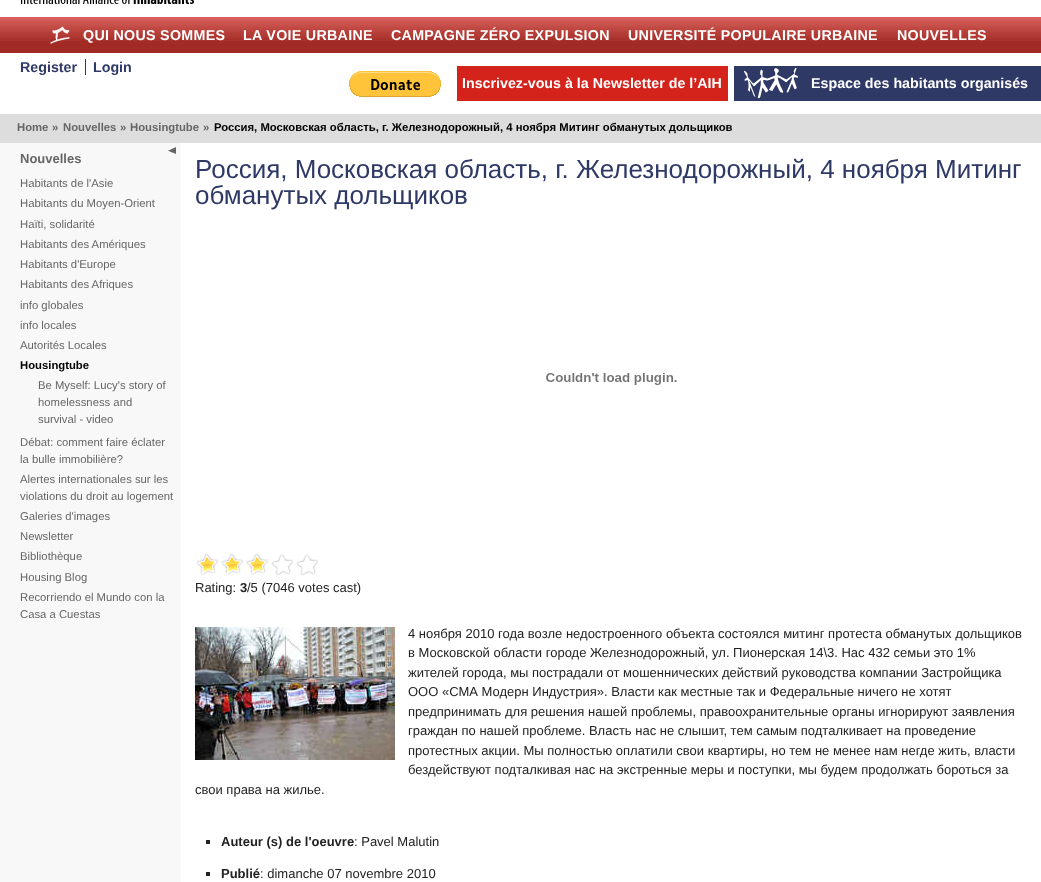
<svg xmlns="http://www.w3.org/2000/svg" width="1041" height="882">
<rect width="100%" height="100%" fill="#fff"/>
<image x="21" y="0" width="173" height="4" href="media/1.png"/>
<rect y="17" width="1041" height="3" fill="#d45e59"/>
<image x="0" y="20" width="1041" height="33" href="media/2.png"/>
<image x="50" y="26" width="20" height="18" href="media/3.png"/>
<text x="83" y="40" style="font-family:Liberation Sans;font-size:14.25px;font-weight:bold;letter-spacing:0.3px;fill:#fff">QUI NOUS SOMMES</text>
<text x="243" y="40" style="font-family:Liberation Sans;font-size:14.25px;font-weight:bold;letter-spacing:0.3px;fill:#fff">LA VOIE URBAINE</text>
<text x="391" y="40" style="font-family:Liberation Sans;font-size:14.25px;font-weight:bold;letter-spacing:0.3px;fill:#fff">CAMPAGNE ZÉRO EXPULSION</text>
<text x="628" y="40" style="font-family:Liberation Sans;font-size:14.25px;font-weight:bold;letter-spacing:0.3px;fill:#fff">UNIVERSITÉ POPULAIRE URBAINE</text>
<text x="897" y="40" style="font-family:Liberation Sans;font-size:14.25px;font-weight:bold;letter-spacing:0.3px;fill:#fff">NOUVELLES</text>
<text x="20" y="72" style="font-family:Liberation Sans;font-size:14.25px;font-weight:bold;fill:#2e3966">Register</text>
<text x="93" y="72" style="font-family:Liberation Sans;font-size:14.25px;font-weight:bold;fill:#2e3966">Login</text>
<rect x="85" y="59" width="1" height="16" fill="#2e3966"/>
<image x="349" y="71" width="92" height="26" href="media/4.png"/>
<rect x="457" y="66" width="271" height="35" fill="#d4231b"/>
<text x="462" y="88" style="font-family:Liberation Sans;font-size:14.25px;font-weight:bold;fill:#fff">Inscrivez-vous à la Newsletter de l’AIH</text>
<rect x="734" y="66" width="307" height="35" fill="#2e3966"/>
<image x="744" y="68" width="54" height="30" href="media/5.png"/>
<text x="811" y="88" style="font-family:Liberation Sans;font-size:14.25px;font-weight:bold;fill:#fff">Espace des habitants organisés</text>
<rect y="114" width="1041" height="29" fill="#ddd"/>
<text x="17" y="131" style="font-family:Liberation Sans;font-size:11.3px;font-weight:bold;fill:#666">Home</text>
<text x="52" y="131" style="font-family:Liberation Sans;font-size:11.3px;font-weight:bold;fill:#666">»</text>
<text x="63" y="131" style="font-family:Liberation Sans;font-size:11.3px;font-weight:bold;fill:#666">Nouvelles</text>
<text x="120" y="131" style="font-family:Liberation Sans;font-size:11.3px;font-weight:bold;fill:#666">»</text>
<text x="130" y="131" style="font-family:Liberation Sans;font-size:11.3px;font-weight:bold;fill:#666">Housingtube</text>
<text x="203" y="131" style="font-family:Liberation Sans;font-size:11.3px;font-weight:bold;fill:#666">»</text>
<text x="214" y="131" style="font-family:Liberation Sans;font-size:11.3px;font-weight:bold;fill:#000">Россия, Московская область, г. Железнодорожный, 4 ноября Митинг обманутых дольщиков</text>
<rect y="143" width="181" height="739" fill="#f8f8f8"/>
<image x="168" y="147" width="8" height="7" href="media/6.png"/>
<text x="20" y="163" style="font-family:Liberation Sans;font-size:13px;font-weight:bold;fill:#666">Nouvelles</text>
<text x="20" y="187" style="font-family:Liberation Sans;font-size:11.3px;fill:#666">Habitants de l'Asie</text>
<text x="20" y="207" style="font-family:Liberation Sans;font-size:11.3px;fill:#666">Habitants du Moyen-Orient</text>
<text x="20" y="228" style="font-family:Liberation Sans;font-size:11.3px;fill:#666">Haïti, solidarité</text>
<text x="20" y="248" style="font-family:Liberation Sans;font-size:11.3px;fill:#666">Habitants des Amériques</text>
<text x="20" y="268" style="font-family:Liberation Sans;font-size:11.3px;fill:#666">Habitants d'Europe</text>
<text x="20" y="288" style="font-family:Liberation Sans;font-size:11.3px;fill:#666">Habitants des Afriques</text>
<text x="20" y="309" style="font-family:Liberation Sans;font-size:11.3px;fill:#666">info globales</text>
<text x="20" y="329" style="font-family:Liberation Sans;font-size:11.3px;fill:#666">info locales</text>
<text x="20" y="349" style="font-family:Liberation Sans;font-size:11.3px;fill:#666">Autorités Locales</text>
<text x="20" y="369" style="font-family:Liberation Sans;font-size:11.3px;font-weight:bold;fill:#000">Housingtube</text>
<text x="38" y="389" style="font-family:Liberation Sans;font-size:11.3px;fill:#666">Be Myself: Lucy's story of</text>
<text x="38" y="406" style="font-family:Liberation Sans;font-size:11.3px;fill:#666">homelessness and</text>
<text x="38" y="423" style="font-family:Liberation Sans;font-size:11.3px;fill:#666">survival - video</text>
<text x="20" y="446" style="font-family:Liberation Sans;font-size:11.3px;fill:#666">Débat: comment faire éclater</text>
<text x="20" y="463" style="font-family:Liberation Sans;font-size:11.3px;fill:#666">la bulle immobilière?</text>
<text x="20" y="483" style="font-family:Liberation Sans;font-size:11.3px;fill:#666">Alertes internationales sur les</text>
<text x="20" y="500" style="font-family:Liberation Sans;font-size:11.3px;fill:#666">violations du droit au logement</text>
<text x="20" y="520" style="font-family:Liberation Sans;font-size:11.3px;fill:#666">Galeries d'images</text>
<text x="20" y="540" style="font-family:Liberation Sans;font-size:11.3px;fill:#666">Newsletter</text>
<text x="20" y="560" style="font-family:Liberation Sans;font-size:11.3px;fill:#666">Bibliothèque</text>
<text x="20" y="581" style="font-family:Liberation Sans;font-size:11.3px;fill:#666">Housing Blog</text>
<text x="20" y="601" style="font-family:Liberation Sans;font-size:11.3px;fill:#666">Recorriendo el Mundo con la</text>
<text x="20" y="618" style="font-family:Liberation Sans;font-size:11.3px;fill:#666">Casa a Cuestas</text>
<text x="195" y="178" style="font-family:Liberation Sans;font-size:26px;fill:#2e3966">Россия, Московская область, г. Железнодорожный, 4 ноября Митинг</text>
<text x="195" y="204" style="font-family:Liberation Sans;font-size:26px;fill:#2e3966">обманутых дольщиков</text>
<image x="546" y="373" width="131" height="12" href="media/7.png"/>
<image x="269" y="554" width="50" height="22" href="media/8.png"/>
<image x="196" y="553" width="73" height="23" href="media/9.png"/>
<text x="195" y="592" style="font-family:Liberation Sans;font-size:13px;fill:#222">Rating:</text>
<text x="240" y="592" style="font-family:Liberation Sans;font-size:13px;font-weight:bold;fill:#222">3</text>
<text x="247" y="592" style="font-family:Liberation Sans;font-size:13px;fill:#222">/5 (7046 votes cast)</text>
<image x="195" y="627" width="200" height="133" href="media/10.png"/>
<text x="408" y="638" style="font-family:Liberation Sans;font-size:13px;fill:#222">4 ноября 2010 года возле недостроенного объекта состоялся митинг протеста обманутых дольщиков</text>
<text x="408" y="657" style="font-family:Liberation Sans;font-size:13px;fill:#222">в Московской области городе Железнодорожный, ул. Пионерская 14\3. Нас 432 семьи это 1%</text>
<text x="408" y="677" style="font-family:Liberation Sans;font-size:13px;fill:#222">жителей города, мы пострадали от мошеннических действий руководства компании Застройщика</text>
<text x="408" y="696" style="font-family:Liberation Sans;font-size:13px;fill:#222">ООО «СМА Модерн Индустрия». Власти как местные так и Федеральные ничего не хотят</text>
<text x="408" y="716" style="font-family:Liberation Sans;font-size:13px;fill:#222">предпринимать для решения нашей проблемы, правоохранительные органы игнорируют заявления</text>
<text x="408" y="735" style="font-family:Liberation Sans;font-size:13px;fill:#222">граждан по нашей проблеме. Власть нас не слышит, тем самым подталкивает на проведение</text>
<text x="408" y="755" style="font-family:Liberation Sans;font-size:13px;fill:#222">протестных акции. Мы полностью оплатили свои квартиры, но тем не менее нам негде жить, власти</text>
<text x="408" y="774" style="font-family:Liberation Sans;font-size:13px;fill:#222">бездействуют подталкивая нас на экстренные меры и поступки, мы будем продолжать бороться за</text>
<text x="195" y="794" style="font-family:Liberation Sans;font-size:13px;fill:#222">свои права на жилье.</text>
<rect x="206" y="840" width="4" height="4" fill="#222"/>
<text x="221" y="846" style="font-family:Liberation Sans;font-size:13px;font-weight:bold;fill:#222">Auteur (s) de l'oeuvre</text>
<text x="354" y="846" style="font-family:Liberation Sans;font-size:13px;fill:#222">: Pavel Malutin</text>
<rect x="206" y="872" width="4" height="4" fill="#222"/>
<text x="221" y="878" style="font-family:Liberation Sans;font-size:13px;font-weight:bold;fill:#222">Publié</text>
<text x="260" y="878" style="font-family:Liberation Sans;font-size:13px;fill:#222">: dimanche 07 novembre 2010</text>
</svg>
